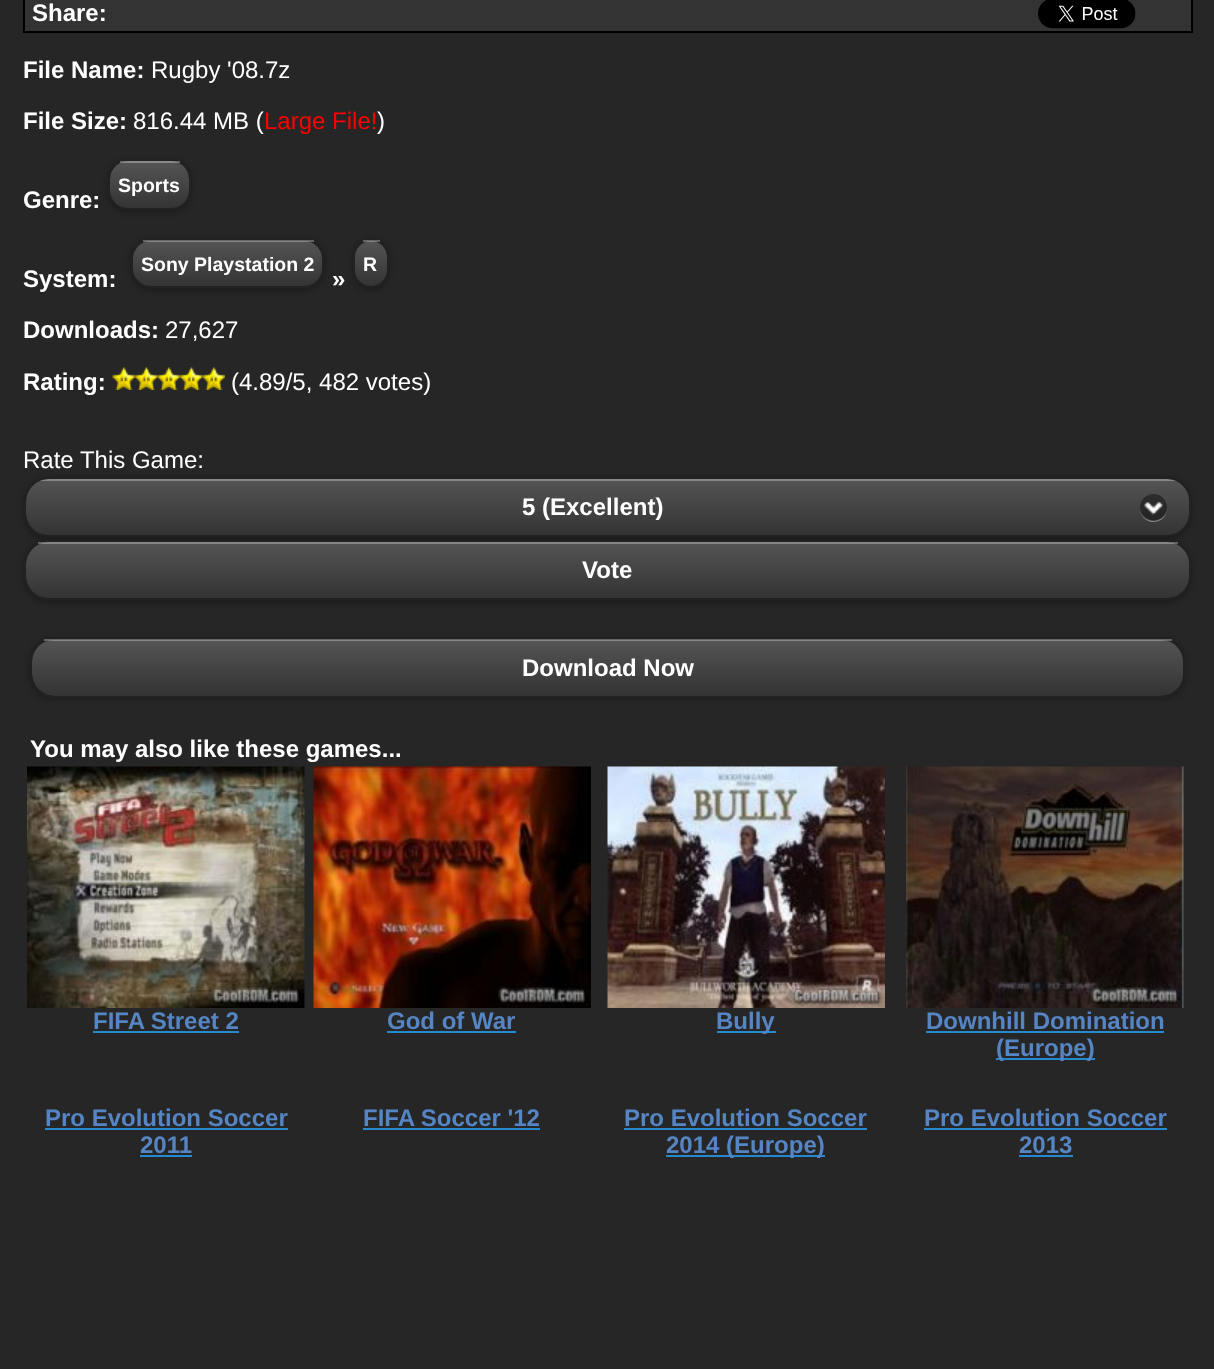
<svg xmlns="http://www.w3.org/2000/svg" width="1214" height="1369">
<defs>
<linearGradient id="g1" gradientUnits="userSpaceOnUse" x1="149" y1="161" x2="149" y2="209"><stop offset="0" stop-color="#555"/><stop offset="1" stop-color="#333"/></linearGradient>
<linearGradient id="g2" gradientUnits="userSpaceOnUse" x1="227" y1="240" x2="227" y2="287"><stop offset="0" stop-color="#555"/><stop offset="1" stop-color="#333"/></linearGradient>
<linearGradient id="g3" gradientUnits="userSpaceOnUse" x1="371" y1="240" x2="371" y2="287"><stop offset="0" stop-color="#555"/><stop offset="1" stop-color="#333"/></linearGradient>
<linearGradient id="g4" gradientUnits="userSpaceOnUse" x1="608" y1="478" x2="608" y2="536"><stop offset="0" stop-color="#555"/><stop offset="1" stop-color="#333"/></linearGradient>
<clipPath id="clip1"><rect x="26" y="479" width="1164" height="57" rx="23"/></clipPath>
<linearGradient id="g5" gradientUnits="userSpaceOnUse" x1="608" y1="541" x2="608" y2="599"><stop offset="0" stop-color="#555"/><stop offset="1" stop-color="#333"/></linearGradient>
<linearGradient id="g6" gradientUnits="userSpaceOnUse" x1="608" y1="639" x2="608" y2="696"><stop offset="0" stop-color="#555"/><stop offset="1" stop-color="#333"/></linearGradient>
</defs>
<rect width="100%" height="100%" fill="#262626"/>
<rect x="24" y="-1" width="1168" height="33" fill="#333" stroke="#000" stroke-width="2"/>
<text x="32" y="21" style="font-family:Liberation Sans;font-size:24px;font-weight:bold;fill:#fff">Share:</text>
<image x="1038" y="0" width="98" height="29" href="media/1.png"/>
<text x="23" y="78" style="font-family:Liberation Sans;font-size:24px;font-weight:bold;fill:#fff">File Name:</text>
<text x="151" y="78" style="font-family:Liberation Sans;font-size:24px;fill:#fff">Rugby '08.7z</text>
<text x="23" y="129" style="font-family:Liberation Sans;font-size:24px;font-weight:bold;fill:#fff">File Size:</text>
<text x="133" y="129" style="font-family:Liberation Sans;font-size:24px;fill:#fff">816.44 MB (</text>
<text x="264" y="129" style="font-family:Liberation Sans;font-size:24px;fill:#f00">Large File!</text>
<text x="377" y="129" style="font-family:Liberation Sans;font-size:24px;fill:#fff">)</text>
<rect x="108" y="161" width="83" height="51" rx="20" fill="#0000004d" filter="blur(3px)"/>
<rect x="110" y="161" width="79" height="48" rx="18" fill="url(#g1)"/>
<rect x="109" y="160" width="81" height="49" rx="19" fill="none" stroke="#222" stroke-width="2"/>
<rect x="120" y="161" width="60" height="2" fill="#ffffff4d"/>
<text x="118" y="192" style="font-family:Liberation Sans;font-size:19.5px;font-weight:bold;fill:#fff">Sports</text>
<text x="23" y="208" style="font-family:Liberation Sans;font-size:24px;font-weight:bold;fill:#fff">Genre:</text>
<rect x="131" y="240" width="193" height="50" rx="20" fill="#0000004d" filter="blur(3px)"/>
<rect x="132" y="240" width="191" height="47" rx="18" fill="url(#g2)"/>
<rect x="132" y="240" width="191" height="47" rx="19" fill="none" stroke="#222" stroke-width="2"/>
<rect x="143" y="240" width="171" height="2" fill="#ffffff4d"/>
<text x="141" y="271" style="font-family:Liberation Sans;font-size:19.5px;font-weight:bold;fill:#fff">Sony Playstation 2</text>
<rect x="353" y="240" width="36" height="50" rx="18" fill="#0000004d" filter="blur(3px)"/>
<rect x="354" y="240" width="33" height="47" rx="16.5" fill="url(#g3)"/>
<rect x="354" y="240" width="34" height="47" rx="17" fill="none" stroke="#222" stroke-width="2"/>
<rect x="363" y="240" width="17" height="2" fill="#ffffff4d"/>
<text x="363" y="271" style="font-family:Liberation Sans;font-size:19.5px;font-weight:bold;fill:#fff">R</text>
<text x="23" y="287" style="font-family:Liberation Sans;font-size:24px;font-weight:bold;fill:#fff">System:</text>
<text x="332" y="287" style="font-family:Liberation Sans;font-size:24px;font-weight:bold;fill:#fff">»</text>
<text x="23" y="338" style="font-family:Liberation Sans;font-size:24px;font-weight:bold;fill:#fff">Downloads:</text>
<text x="165" y="338" style="font-family:Liberation Sans;font-size:24px;fill:#fff">27,627</text>
<text x="23" y="390" style="font-family:Liberation Sans;font-size:24px;font-weight:bold;fill:#fff">Rating:</text>
<image x="112" y="367" width="23" height="23" href="media/2.png"/>
<image x="135" y="367" width="23" height="23" href="media/3.png"/>
<image x="157" y="367" width="23" height="23" href="media/4.png"/>
<image x="180" y="367" width="23" height="23" href="media/3.png"/>
<image x="202" y="367" width="23" height="23" href="media/4.png"/>
<text x="231" y="390" style="font-family:Liberation Sans;font-size:24px;fill:#fff">(4.89/5, 482 votes)</text>
<text x="23" y="468" style="font-family:Liberation Sans;font-size:24px;fill:#fff">Rate This Game:</text>
<rect x="24" y="479" width="1167" height="60" rx="24" fill="#0000004d" filter="blur(3px)"/>
<rect x="26" y="479" width="1164" height="57" rx="23" fill="url(#g4)"/>
<rect x="25" y="478" width="1165" height="58" rx="23" fill="none" stroke="#222" stroke-width="2"/>
<g clip-path="url(#clip1)">
<rect x="38" y="479" width="1140" height="2" fill="#ffffff4d"/>
</g>
<text x="522" y="515" style="font-family:Liberation Sans;font-size:24px;font-weight:bold;fill:#fff">5 (Excellent)</text>
<path d="M1140 508c0 2.5 .5 5.5 2.5 8c7.5 11.5 25 5.5 24.5-8c-1 16.5-26 16.5-27 0z" fill="#ffffff66"/>
<circle cx="1153.5" cy="507.5" r="13.5" fill="#00000066"/>
<image x="1144" y="501" width="19" height="14" href="media/5.png"/>
<rect x="24" y="542" width="1167" height="60" rx="24" fill="#0000004d" filter="blur(3px)"/>
<rect x="26" y="542" width="1164" height="57" rx="23" fill="url(#g5)"/>
<rect x="25" y="541" width="1165" height="58" rx="23" fill="none" stroke="#222" stroke-width="2"/>
<rect x="38" y="542" width="1140" height="2" fill="#ffffff4d"/>
<text x="582" y="578" style="font-family:Liberation Sans;font-size:24px;font-weight:bold;fill:#fff">Vote</text>
<rect x="30" y="639" width="1155" height="60" rx="24" fill="#0000004d" filter="blur(3px)"/>
<rect x="32" y="639" width="1152" height="57" rx="23" fill="url(#g6)"/>
<rect x="31" y="639" width="1153" height="58" rx="23" fill="none" stroke="#222" stroke-width="2"/>
<rect x="44" y="639" width="1128" height="2" fill="#ffffff4d"/>
<text x="522" y="676" style="font-family:Liberation Sans;font-size:24px;font-weight:bold;fill:#fff">Download Now</text>
<text x="30" y="757" style="font-family:Liberation Sans;font-size:24px;font-weight:bold;fill:#fff">You may also like these games...</text>
<image x="27" y="766" width="278" height="242" href="media/6.png"/>
<text x="93" y="1029" style="font-family:Liberation Sans;font-size:24px;font-weight:bold;fill:#5685c4">FIFA Street 2</text>
<rect x="93" y="1031" width="146" height="2" fill="#2489ce"/>
<image x="313" y="766" width="278" height="242" href="media/7.png"/>
<text x="387" y="1029" style="font-family:Liberation Sans;font-size:24px;font-weight:bold;fill:#5685c4">God of War</text>
<rect x="387" y="1031" width="129" height="2" fill="#2489ce"/>
<image x="607" y="766" width="278" height="242" href="media/8.png"/>
<rect x="717" y="1031" width="59" height="2" fill="#2489ce"/>
<text x="716" y="1029" style="font-family:Liberation Sans;font-size:24px;font-weight:bold;fill:#5685c4">Bully</text>
<image x="906" y="766" width="278" height="242" href="media/9.png"/>
<text x="926" y="1029" style="font-family:Liberation Sans;font-size:24px;font-weight:bold;fill:#5685c4">Downhill Domination</text>
<rect x="926" y="1031" width="238" height="2" fill="#2489ce"/>
<rect x="996" y="1058" width="99" height="2" fill="#2489ce"/>
<text x="996" y="1056" style="font-family:Liberation Sans;font-size:24px;font-weight:bold;fill:#5685c4">(Europe)</text>
<text x="45" y="1126" style="font-family:Liberation Sans;font-size:24px;font-weight:bold;fill:#5685c4">Pro Evolution Soccer</text>
<rect x="45" y="1128" width="243" height="2" fill="#2489ce"/>
<text x="140" y="1153" style="font-family:Liberation Sans;font-size:24px;font-weight:bold;fill:#5685c4">2011</text>
<rect x="140" y="1155" width="52" height="2" fill="#2489ce"/>
<text x="363" y="1126" style="font-family:Liberation Sans;font-size:24px;font-weight:bold;fill:#5685c4">FIFA Soccer '12</text>
<rect x="363" y="1128" width="177" height="2" fill="#2489ce"/>
<text x="624" y="1126" style="font-family:Liberation Sans;font-size:24px;font-weight:bold;fill:#5685c4">Pro Evolution Soccer</text>
<rect x="624" y="1128" width="243" height="2" fill="#2489ce"/>
<rect x="666" y="1155" width="159" height="2" fill="#2489ce"/>
<text x="666" y="1153" style="font-family:Liberation Sans;font-size:24px;font-weight:bold;fill:#5685c4">2014 (Europe)</text>
<text x="924" y="1126" style="font-family:Liberation Sans;font-size:24px;font-weight:bold;fill:#5685c4">Pro Evolution Soccer</text>
<rect x="924" y="1128" width="243" height="2" fill="#2489ce"/>
<text x="1019" y="1153" style="font-family:Liberation Sans;font-size:24px;font-weight:bold;fill:#5685c4">2013</text>
<rect x="1019" y="1155" width="54" height="2" fill="#2489ce"/>
</svg>
